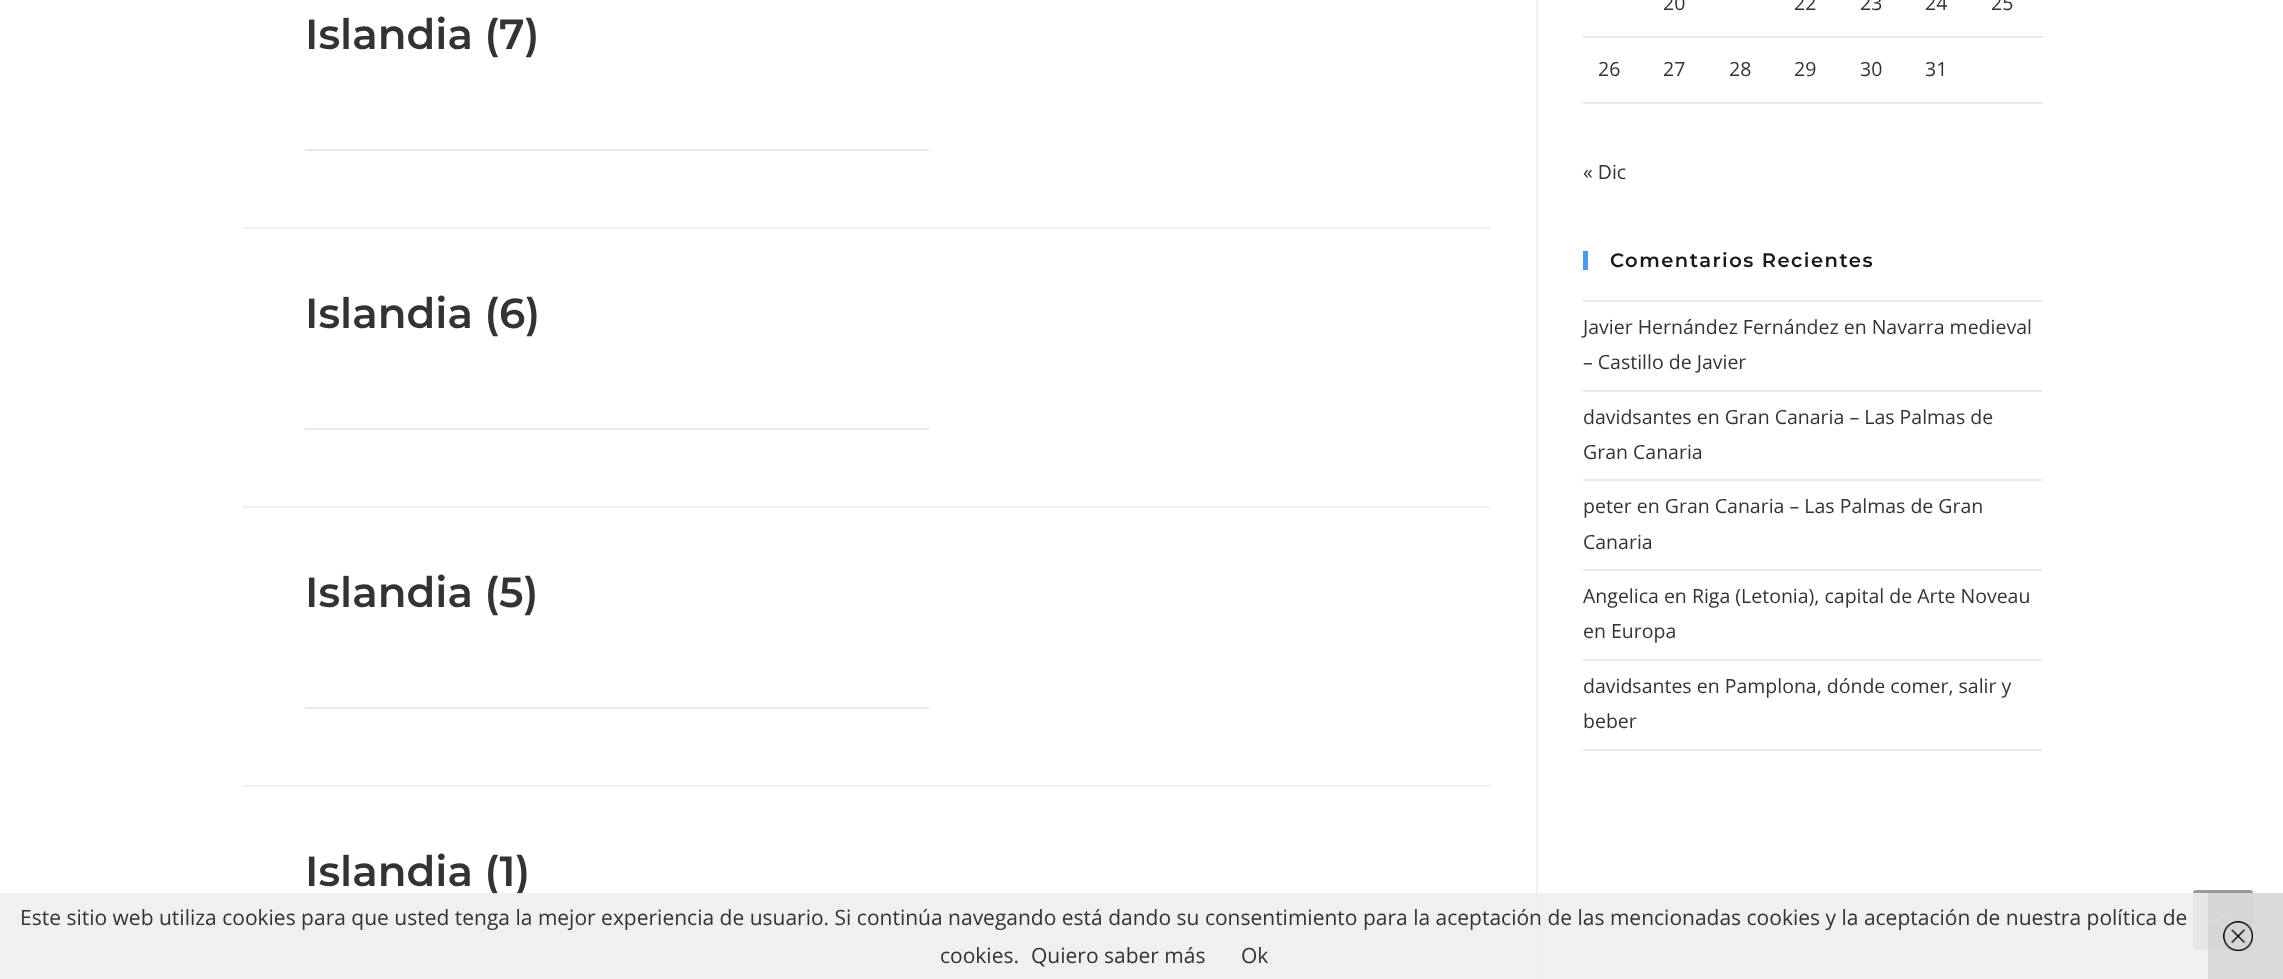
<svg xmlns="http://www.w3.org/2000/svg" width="2283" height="979">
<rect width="100%" height="100%" fill="#fff"/>
<rect x="1536" width="2" height="979" fill="#f1f1f1"/>
<rect x="242" y="227" width="1249" height="2" fill="#f1f1f1"/>
<text x="305" y="49" style="font-family:Montserrat;font-size:42px;font-weight:600;fill:#333">Islandia (7)</text>
<rect x="305" y="149" width="624" height="2" fill="#e9e9e9"/>
<rect x="242" y="506" width="1249" height="2" fill="#f1f1f1"/>
<text x="305" y="328" style="font-family:Montserrat;font-size:42px;font-weight:600;fill:#333">Islandia (6)</text>
<rect x="305" y="428" width="624" height="2" fill="#e9e9e9"/>
<rect x="242" y="785" width="1249" height="2" fill="#f1f1f1"/>
<text x="305" y="607" style="font-family:Montserrat;font-size:42px;font-weight:600;fill:#333">Islandia (5)</text>
<rect x="305" y="707" width="624" height="2" fill="#e9e9e9"/>
<text x="305" y="886" style="font-family:Montserrat;font-size:42px;font-weight:600;fill:#333">Islandia (1)</text>
<text x="1663" y="10" style="font-family:Open Sans;font-size:19.5px;fill:#333">20</text>
<text x="1794" y="10" style="font-family:Open Sans;font-size:19.5px;fill:#333">22</text>
<text x="1860" y="10" style="font-family:Open Sans;font-size:19.5px;fill:#333">23</text>
<text x="1925" y="10" style="font-family:Open Sans;font-size:19.5px;fill:#333">24</text>
<rect x="1583" y="36" width="460" height="2" fill="#e9e9e9"/>
<text x="1991" y="10" style="font-family:Open Sans;font-size:19.5px;fill:#333">25</text>
<text x="1598" y="76" style="font-family:Open Sans;font-size:19.5px;fill:#333">26</text>
<text x="1663" y="76" style="font-family:Open Sans;font-size:19.5px;fill:#333">27</text>
<text x="1729" y="76" style="font-family:Open Sans;font-size:19.5px;fill:#333">28</text>
<text x="1794" y="76" style="font-family:Open Sans;font-size:19.5px;fill:#333">29</text>
<text x="1860" y="76" style="font-family:Open Sans;font-size:19.5px;fill:#333">30</text>
<text x="1925" y="76" style="font-family:Open Sans;font-size:19.5px;fill:#333">31</text>
<rect x="1583" y="102" width="460" height="2" fill="#e9e9e9"/>
<text x="1583" y="179" style="font-family:Open Sans;font-size:19.5px;fill:#333">« Dic</text>
<rect x="1583" y="251" width="5" height="19" fill="#4a98f7"/>
<text x="1610" y="267" style="font-family:Montserrat;font-size:19.5px;font-weight:600;letter-spacing:1.5px;fill:#161819">Comentarios Recientes</text>
<rect x="1583" y="300" width="459" height="2" fill="#e9e9e9"/>
<rect x="1583" y="390" width="459" height="2" fill="#e9e9e9"/>
<text x="1583" y="334" style="font-family:Open Sans;font-size:19.5px;fill:#333">Javier Hernández Fernández en Navarra medieval</text>
<text x="1583" y="369" style="font-family:Open Sans;font-size:19.5px;fill:#333">– Castillo de Javier</text>
<rect x="1583" y="479" width="459" height="2" fill="#e9e9e9"/>
<text x="1583" y="424" style="font-family:Open Sans;font-size:19.5px;fill:#333">davidsantes en Gran Canaria – Las Palmas de</text>
<text x="1583" y="459" style="font-family:Open Sans;font-size:19.5px;fill:#333">Gran Canaria</text>
<rect x="1583" y="569" width="459" height="2" fill="#e9e9e9"/>
<text x="1583" y="513" style="font-family:Open Sans;font-size:19.5px;fill:#333">peter en Gran Canaria – Las Palmas de Gran</text>
<text x="1583" y="549" style="font-family:Open Sans;font-size:19.5px;fill:#333">Canaria</text>
<rect x="1583" y="659" width="459" height="2" fill="#e9e9e9"/>
<text x="1583" y="603" style="font-family:Open Sans;font-size:19.5px;fill:#333">Angelica en Riga (Letonia), capital de Arte Noveau</text>
<text x="1583" y="638" style="font-family:Open Sans;font-size:19.5px;fill:#333">en Europa</text>
<rect x="1583" y="749" width="459" height="2" fill="#e9e9e9"/>
<text x="1583" y="693" style="font-family:Open Sans;font-size:19.5px;fill:#333">davidsantes en Pamplona, dónde comer, salir y</text>
<text x="1583" y="728" style="font-family:Open Sans;font-size:19.5px;fill:#333">beber</text>
<rect x="2193" y="890" width="60" height="60" rx="3" fill="#999"/>
<image x="2212" y="913" width="21" height="12" href="media/2.png"/>
<rect y="893" width="2283" height="86" fill="#eeeeeee6"/>
<text x="20" y="925" style="font-family:Open Sans;font-size:21px;fill:#333">Este sitio web utiliza cookies para que usted tenga la mejor experiencia de usuario. Si continúa navegando está dando su consentimiento para la aceptación de las mencionadas cookies y la aceptación de nuestra política de</text>
<text x="940" y="963" style="font-family:Open Sans;font-size:21px;fill:#333">cookies.</text>
<text x="1031" y="963" style="font-family:Open Sans;font-size:21px;fill:#333">Quiero saber más</text>
<text x="1241" y="963" style="font-family:Open Sans;font-size:21px;fill:#333">Ok</text>
<rect x="2208" y="893" width="75" height="86" fill="#cccccc99"/>
<image x="2223" y="921" width="30" height="30" href="media/1.png"/>
</svg>
